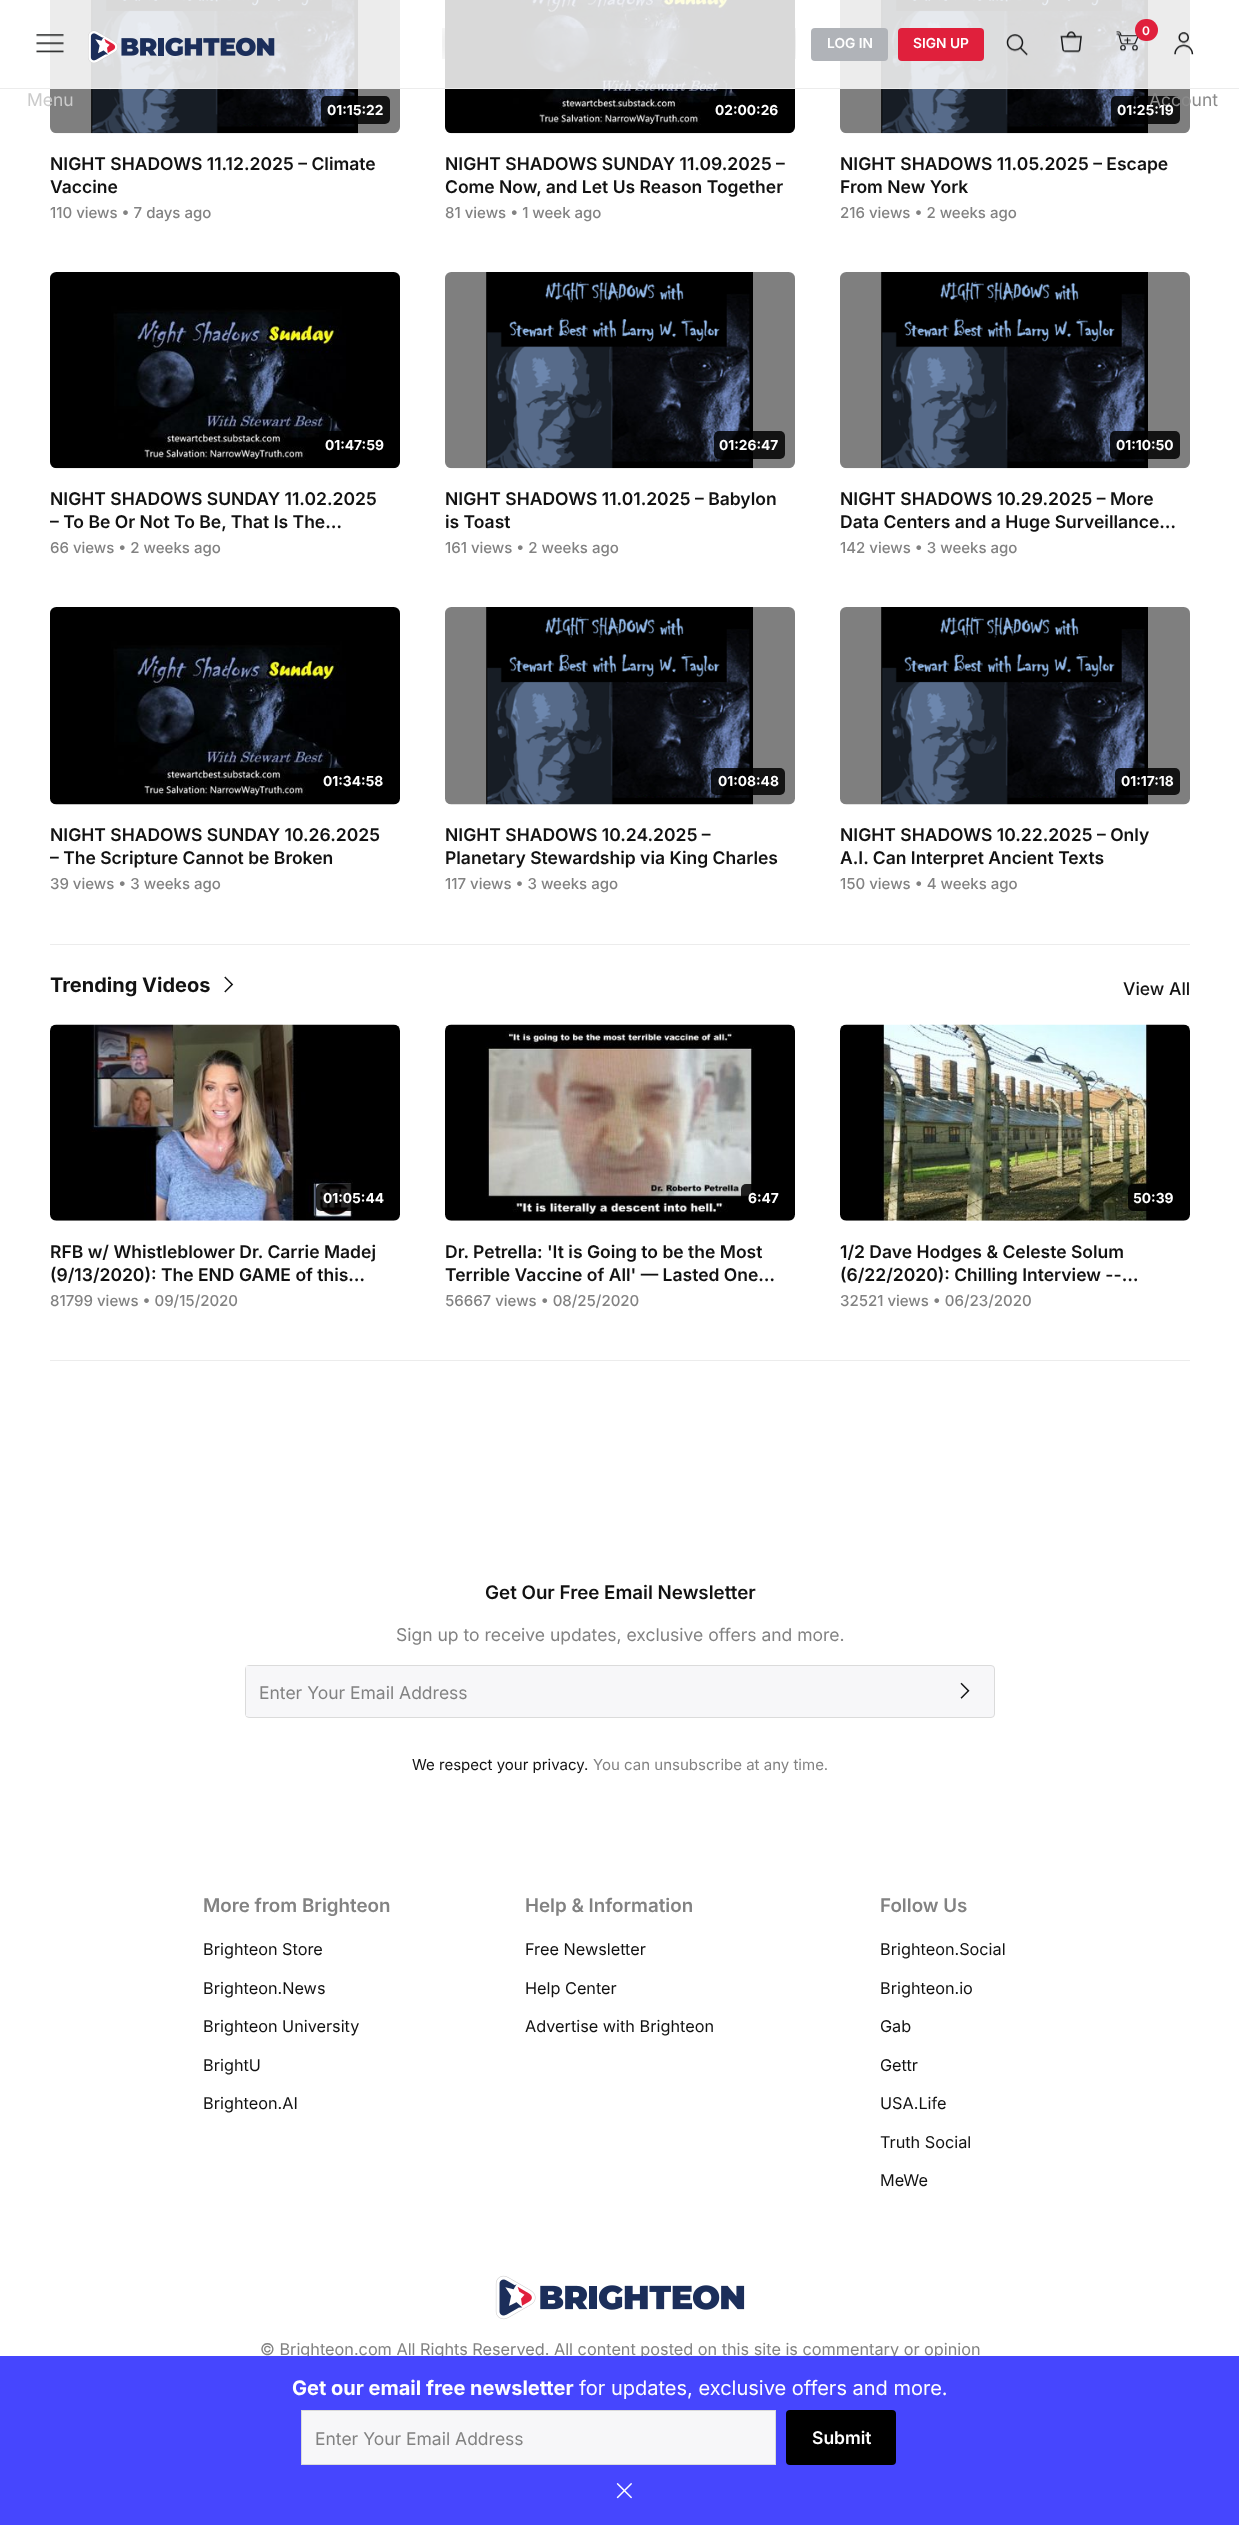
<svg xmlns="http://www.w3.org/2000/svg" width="1239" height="2525">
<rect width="100%" height="100%" fill="#fff"/>
<image x="50" y="0" width="350" height="134" href="media/7.png"/>
<image x="442" y="0" width="354" height="134" href="media/8.png"/>
<image x="840" y="0" width="350" height="134" href="media/9.png"/>
<rect x="50" width="1140" height="88" fill="#ffffffd9"/>
<rect y="88" width="1239" height="1" fill="#ececec"/>
<image x="88" y="30" width="187" height="33" href="media/1.png"/>
<rect x="811" y="28" width="77" height="33" rx="4" fill="#b0b3b8"/>
<text x="827" y="48" style="font-family:Inter;font-size:13.75px;font-weight:600;fill:#fff">LOG IN</text>
<rect x="898" y="28" width="86" height="33" rx="4" fill="#e0203c"/>
<text x="913" y="48" style="font-family:Inter;font-size:13.75px;font-weight:600;fill:#fff">SIGN UP</text>
<image x="1006" y="34" width="22" height="22" href="media/2.png"/>
<image x="1060" y="31" width="22" height="22" href="media/3.png"/>
<image x="1116" y="31" width="23" height="21" href="media/4.png"/>
<rect x="1135" y="19" width="23" height="22" rx="11" fill="#e0203c"/>
<text x="1142" y="35" style="font-family:Inter;font-size:12px;font-weight:600;fill:#fff">0</text>
<rect x="1111" y="96" width="69" height="28" rx="5" fill="#000000d9"/>
<text x="1133" y="106" style="font-family:Inter;font-size:17.5px;fill:#1b1e27">r</text>
<image x="1174" y="32" width="20" height="23" href="media/5.png"/>
<text x="1149" y="106" style="font-family:Inter;font-size:17.5px;fill:#8b8b8b">Account</text>
<image x="36" y="34" width="28" height="19" href="media/6.png"/>
<text x="27" y="106" style="font-family:Inter;font-size:17.5px;fill:#cbcbcb">Menu</text>
<rect x="50" y="944" width="1140" height="1" fill="#ececec"/>
<rect x="321" y="96" width="69" height="28" rx="5" fill="#000000d9"/>
<text x="327" y="115" style="font-family:Inter;font-size:13.75px;font-weight:bold;fill:#fff">01:15:22</text>
<text x="50" y="170" style="font-family:Inter;font-size:17.5px;font-weight:600;fill:#121212">NIGHT SHADOWS 11.12.2025 – Climate</text>
<text x="50" y="193" style="font-family:Inter;font-size:17.5px;font-weight:600;fill:#121212">Vaccine</text>
<text x="50" y="218" style="font-family:Inter;font-size:15px;font-weight:500;fill:#828282">110 views • 7 days ago</text>
<rect x="709" y="96" width="76" height="28" rx="5" fill="#000000d9"/>
<text x="715" y="115" style="font-family:Inter;font-size:13.75px;font-weight:bold;fill:#fff">02:00:26</text>
<text x="445" y="170" style="font-family:Inter;font-size:17.5px;font-weight:600;fill:#121212">NIGHT SHADOWS SUNDAY 11.09.2025 –</text>
<text x="445" y="193" style="font-family:Inter;font-size:17.5px;font-weight:600;fill:#121212">Come Now, and Let Us Reason Together</text>
<text x="445" y="218" style="font-family:Inter;font-size:15px;font-weight:500;fill:#828282">81 views • 1 week ago</text>
<text x="1117" y="115" style="font-family:Inter;font-size:13.75px;font-weight:bold;fill:#fff">01:25:19</text>
<text x="840" y="170" style="font-family:Inter;font-size:17.5px;font-weight:600;fill:#121212">NIGHT SHADOWS 11.05.2025 – Escape</text>
<text x="840" y="193" style="font-family:Inter;font-size:17.5px;font-weight:600;fill:#121212">From New York</text>
<text x="840" y="218" style="font-family:Inter;font-size:15px;font-weight:500;fill:#828282">216 views • 2 weeks ago</text>
<image x="50" y="272" width="350" height="197" href="media/10.png"/>
<rect x="319" y="431" width="71" height="28" rx="5" fill="#000000d9"/>
<text x="325" y="450" style="font-family:Inter;font-size:13.75px;font-weight:bold;fill:#fff">01:47:59</text>
<text x="50" y="505" style="font-family:Inter;font-size:17.5px;font-weight:600;fill:#121212">NIGHT SHADOWS SUNDAY 11.02.2025</text>
<text x="50" y="528" style="font-family:Inter;font-size:17.5px;font-weight:600;fill:#121212">– To Be Or Not To Be, That Is The…</text>
<text x="50" y="553" style="font-family:Inter;font-size:15px;font-weight:500;fill:#828282">66 views • 2 weeks ago</text>
<image x="445" y="272" width="350" height="197" href="media/11.png"/>
<rect x="714" y="431" width="71" height="28" rx="5" fill="#000000d9"/>
<text x="719" y="450" style="font-family:Inter;font-size:13.75px;font-weight:bold;fill:#fff">01:26:47</text>
<text x="445" y="505" style="font-family:Inter;font-size:17.5px;font-weight:600;fill:#121212">NIGHT SHADOWS 11.01.2025 – Babylon</text>
<text x="445" y="528" style="font-family:Inter;font-size:17.5px;font-weight:600;fill:#121212">is Toast</text>
<text x="445" y="553" style="font-family:Inter;font-size:15px;font-weight:500;fill:#828282">161 views • 2 weeks ago</text>
<image x="840" y="272" width="350" height="197" href="media/12.png"/>
<rect x="1110" y="431" width="70" height="28" rx="5" fill="#000000d9"/>
<text x="1116" y="450" style="font-family:Inter;font-size:13.75px;font-weight:bold;fill:#fff">01:10:50</text>
<text x="840" y="505" style="font-family:Inter;font-size:17.5px;font-weight:600;fill:#121212">NIGHT SHADOWS 10.29.2025 – More</text>
<text x="840" y="528" style="font-family:Inter;font-size:17.5px;font-weight:600;fill:#121212">Data Centers and a Huge Surveillance…</text>
<text x="840" y="553" style="font-family:Inter;font-size:15px;font-weight:500;fill:#828282">142 views • 3 weeks ago</text>
<image x="50" y="607" width="350" height="198" href="media/13.png"/>
<rect x="318" y="768" width="72" height="27" rx="5" fill="#000000d9"/>
<text x="323" y="786" style="font-family:Inter;font-size:13.75px;font-weight:bold;fill:#fff">01:34:58</text>
<text x="50" y="841" style="font-family:Inter;font-size:17.5px;font-weight:600;fill:#121212">NIGHT SHADOWS SUNDAY 10.26.2025</text>
<text x="50" y="864" style="font-family:Inter;font-size:17.5px;font-weight:600;fill:#121212">– The Scripture Cannot be Broken</text>
<text x="50" y="889" style="font-family:Inter;font-size:15px;font-weight:500;fill:#828282">39 views • 3 weeks ago</text>
<image x="445" y="607" width="350" height="198" href="media/14.png"/>
<rect x="711" y="768" width="74" height="27" rx="5" fill="#000000d9"/>
<text x="718" y="786" style="font-family:Inter;font-size:13.75px;font-weight:bold;fill:#fff">01:08:48</text>
<text x="445" y="841" style="font-family:Inter;font-size:17.5px;font-weight:600;fill:#121212">NIGHT SHADOWS 10.24.2025 –</text>
<text x="445" y="864" style="font-family:Inter;font-size:17.5px;font-weight:600;fill:#121212">Planetary Stewardship via King Charles</text>
<text x="445" y="889" style="font-family:Inter;font-size:15px;font-weight:500;fill:#828282">117 views • 3 weeks ago</text>
<image x="840" y="607" width="350" height="198" href="media/15.png"/>
<rect x="1115" y="768" width="65" height="27" rx="5" fill="#000000d9"/>
<text x="1121" y="786" style="font-family:Inter;font-size:13.75px;font-weight:bold;fill:#fff">01:17:18</text>
<text x="840" y="841" style="font-family:Inter;font-size:17.5px;font-weight:600;fill:#121212">NIGHT SHADOWS 10.22.2025 – Only</text>
<text x="840" y="864" style="font-family:Inter;font-size:17.5px;font-weight:600;fill:#121212">A.I. Can Interpret Ancient Texts</text>
<text x="840" y="889" style="font-family:Inter;font-size:15px;font-weight:500;fill:#828282">150 views • 4 weeks ago</text>
<text x="50" y="992" style="font-family:Inter;font-size:20px;font-weight:bold;fill:#121212">Trending Videos</text>
<image x="224" y="976" width="10" height="17" href="media/16.png"/>
<text x="1123" y="995" style="font-family:Inter;font-size:17.5px;font-weight:500;fill:#121212">View All</text>
<rect x="50" y="1360" width="1140" height="1" fill="#ececec"/>
<image x="50" y="1024" width="350" height="197" href="media/17.png"/>
<rect x="316" y="1184" width="74" height="27" rx="5" fill="#000000d9"/>
<text x="323" y="1203" style="font-family:Inter;font-size:13.75px;font-weight:bold;fill:#fff">01:05:44</text>
<text x="50" y="1258" style="font-family:Inter;font-size:17.5px;font-weight:600;fill:#121212">RFB w/ Whistleblower Dr. Carrie Madej</text>
<text x="50" y="1281" style="font-family:Inter;font-size:17.5px;font-weight:600;fill:#121212">(9/13/2020): The END GAME of this…</text>
<text x="50" y="1306" style="font-family:Inter;font-size:15px;font-weight:500;fill:#828282">81799 views • 09/15/2020</text>
<image x="445" y="1024" width="350" height="197" href="media/18.png"/>
<rect x="741" y="1184" width="44" height="27" rx="5" fill="#000000d9"/>
<text x="748" y="1203" style="font-family:Inter;font-size:13.75px;font-weight:bold;fill:#fff">6:47</text>
<text x="445" y="1258" style="font-family:Inter;font-size:17.5px;font-weight:600;fill:#121212">Dr. Petrella: 'It is Going to be the Most</text>
<text x="445" y="1281" style="font-family:Inter;font-size:17.5px;font-weight:600;fill:#121212">Terrible Vaccine of All' — Lasted One…</text>
<text x="445" y="1306" style="font-family:Inter;font-size:15px;font-weight:500;fill:#828282">56667 views • 08/25/2020</text>
<image x="840" y="1024" width="350" height="197" href="media/19.png"/>
<rect x="1128" y="1184" width="52" height="27" rx="5" fill="#000000d9"/>
<text x="1133" y="1203" style="font-family:Inter;font-size:13.75px;font-weight:bold;fill:#fff">50:39</text>
<text x="840" y="1258" style="font-family:Inter;font-size:17.5px;font-weight:600;fill:#121212">1/2 Dave Hodges &amp; Celeste Solum</text>
<text x="840" y="1281" style="font-family:Inter;font-size:17.5px;font-weight:600;fill:#121212">(6/22/2020): Chilling Interview --…</text>
<text x="840" y="1306" style="font-family:Inter;font-size:15px;font-weight:500;fill:#828282">32521 views • 06/23/2020</text>
<text x="485" y="1599" style="font-family:Inter;font-size:18.75px;font-weight:600;fill:#121212">Get Our Free Email Newsletter</text>
<text x="396" y="1641" style="font-family:Inter;font-size:17.5px;fill:#828282">Sign up to receive updates, exclusive offers and more.</text>
<rect x="245.5" y="1665.5" width="749" height="52" rx="3.5" fill="#f7f7f9" stroke="#dbdbdb"/>
<rect x="246" y="1666" width="3" height="50" fill="#f7f7f9"/>
<text x="259" y="1699" style="font-family:Inter;font-size:17.5px;fill:#828282">Enter Your Email Address</text>
<image x="960" y="1682" width="10" height="17" href="media/20.png"/>
<text x="412" y="1770" style="font-family:Inter;font-size:15px;fill:#121212">We respect your privacy.</text>
<text x="593" y="1770" style="font-family:Inter;font-size:15px;fill:#828282">You can unsubscribe at any time.</text>
<text x="203" y="1912" style="font-family:Inter;font-size:18.75px;font-weight:600;fill:#828282">More from Brighteon</text>
<text x="203" y="1955" style="font-family:Inter;font-size:16.25px;fill:#121212">Brighteon Store</text>
<text x="203" y="1994" style="font-family:Inter;font-size:16.25px;fill:#121212">Brighteon.News</text>
<text x="203" y="2032" style="font-family:Inter;font-size:16.25px;fill:#121212">Brighteon University</text>
<text x="203" y="2071" style="font-family:Inter;font-size:16.25px;fill:#121212">BrightU</text>
<text x="203" y="2109" style="font-family:Inter;font-size:16.25px;fill:#121212">Brighteon.AI</text>
<text x="525" y="1912" style="font-family:Inter;font-size:18.75px;font-weight:600;fill:#828282">Help &amp; Information</text>
<text x="525" y="1955" style="font-family:Inter;font-size:16.25px;fill:#121212">Free Newsletter</text>
<text x="525" y="1994" style="font-family:Inter;font-size:16.25px;fill:#121212">Help Center</text>
<text x="525" y="2032" style="font-family:Inter;font-size:16.25px;fill:#121212">Advertise with Brighteon</text>
<text x="880" y="1912" style="font-family:Inter;font-size:18.75px;font-weight:600;fill:#828282">Follow Us</text>
<text x="880" y="1955" style="font-family:Inter;font-size:16.25px;fill:#121212">Brighteon.Social</text>
<text x="880" y="1994" style="font-family:Inter;font-size:16.25px;fill:#121212">Brighteon.io</text>
<text x="880" y="2032" style="font-family:Inter;font-size:16.25px;fill:#121212">Gab</text>
<text x="880" y="2071" style="font-family:Inter;font-size:16.25px;fill:#121212">Gettr</text>
<text x="880" y="2109" style="font-family:Inter;font-size:16.25px;fill:#121212">USA.Life</text>
<text x="880" y="2148" style="font-family:Inter;font-size:16.25px;fill:#121212">Truth Social</text>
<text x="880" y="2186" style="font-family:Inter;font-size:16.25px;fill:#121212">MeWe</text>
<image x="495" y="2275" width="250" height="45" href="media/21.png"/>
<text x="260" y="2355" style="font-family:Inter;font-size:16.25px;fill:#828282">© Brighteon.com All Rights Reserved. All content posted on this site is commentary or opinion</text>
<rect y="2356" width="1239" height="169" fill="#4646fe"/>
<text x="292" y="2395" style="font-family:Inter;font-size:20px;font-weight:bold;fill:#fff">Get our email free newsletter</text>
<text x="579" y="2395" style="font-family:Inter;font-size:20px;fill:#fff">for updates, exclusive offers and more.</text>
<rect x="301.5" y="2410.5" width="474" height="54" fill="#f7f7f9" stroke="#dbdbdb"/>
<text x="315" y="2445" style="font-family:Inter;font-size:17.5px;fill:#828282">Enter Your Email Address</text>
<rect x="786" y="2410" width="110" height="55" rx="4" fill="#000"/>
<text x="812" y="2444" style="font-family:Inter;font-size:17.5px;font-weight:600;fill:#fff">Submit</text>
<image x="616" y="2483" width="16" height="16" href="media/22.png"/>
</svg>
